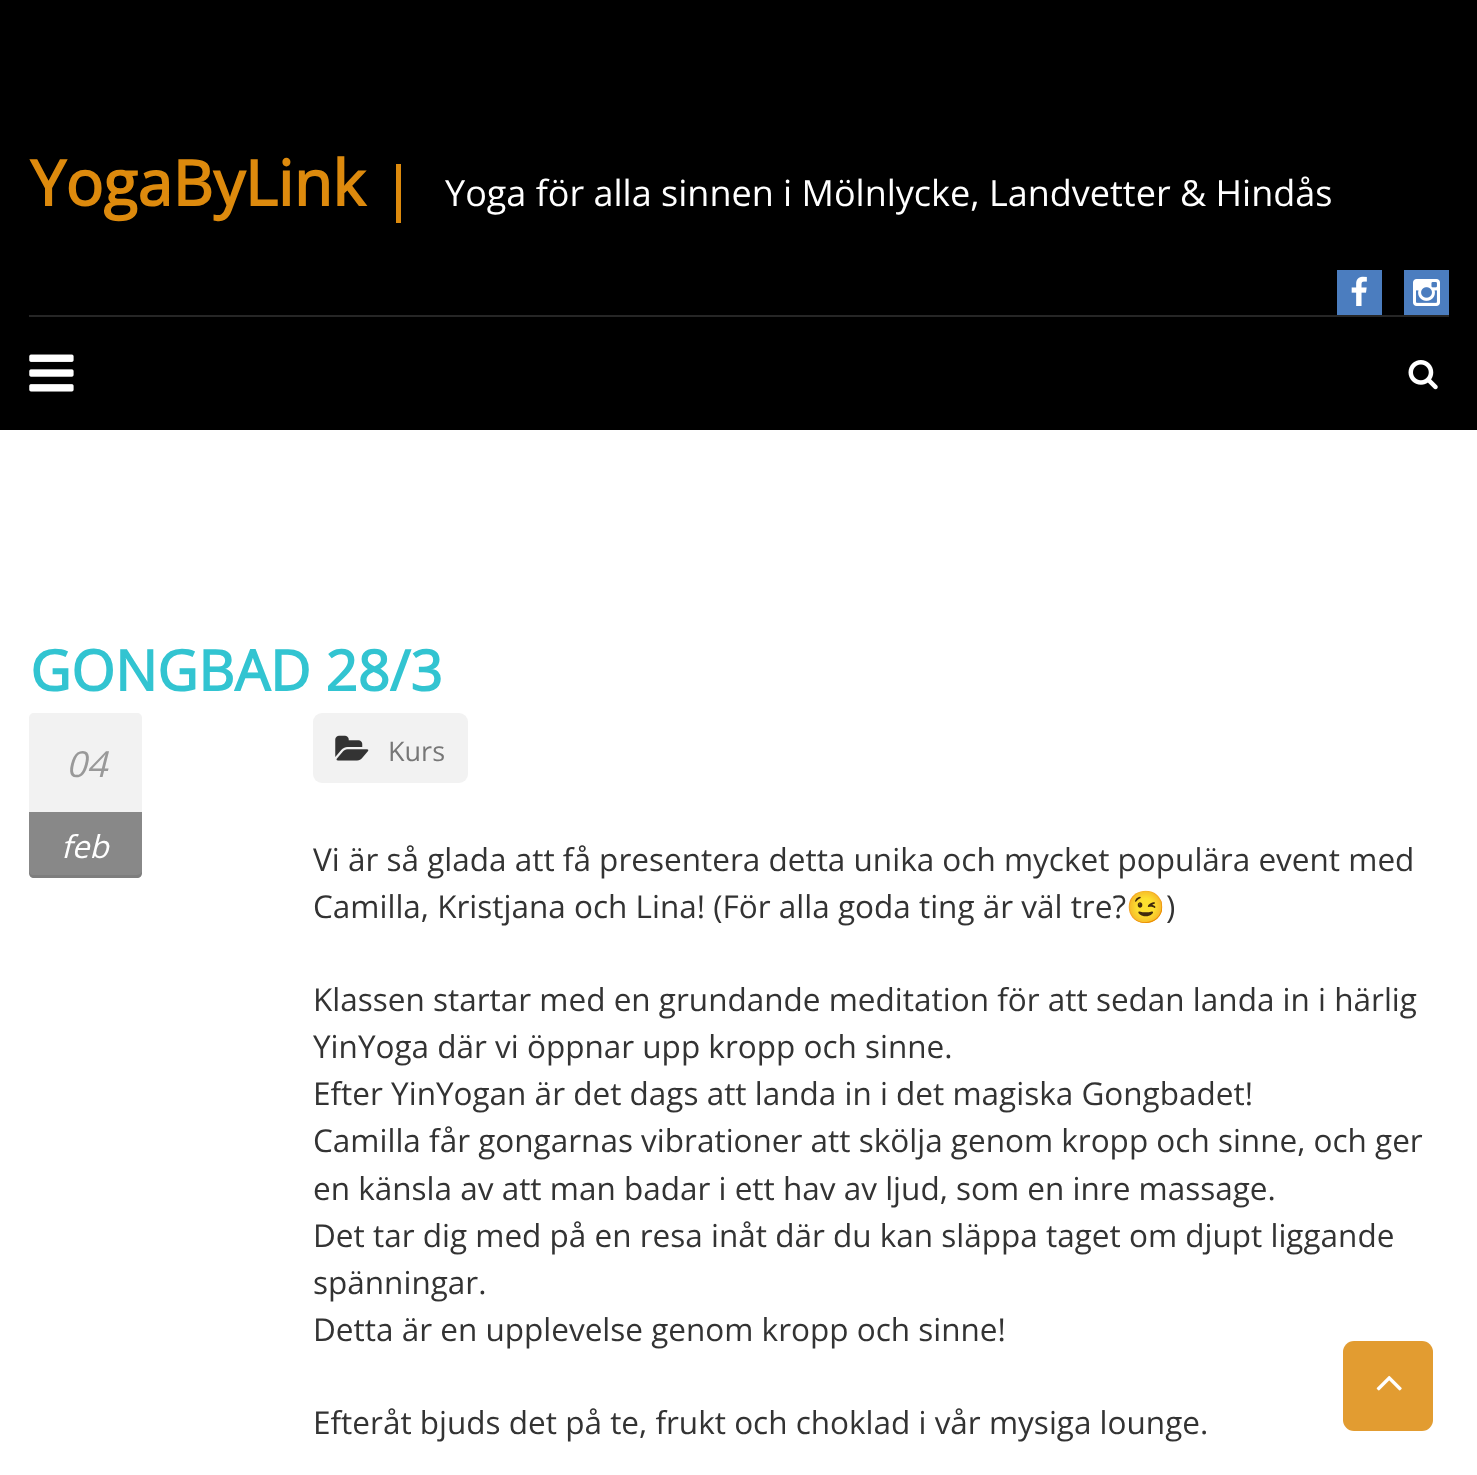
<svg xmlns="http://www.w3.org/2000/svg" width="1477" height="1475">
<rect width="100%" height="100%" fill="#fff"/>
<rect width="1477" height="430" fill="#000"/>
<rect x="29" y="315" width="1420" height="2" fill="#262626"/>
<text x="30" y="206" style="font-family:Open Sans;font-size:63px;font-weight:bold;fill:#dd8a0d">YogaByLink</text>
<rect x="396" y="164" width="5" height="59" fill="#dd8a0d"/>
<text x="445" y="206" style="font-family:Open Sans;font-size:36px;fill:#fff">Yoga för alla sinnen i Mölnlycke, Landvetter &amp; Hindås</text>
<rect x="1337" y="270" width="45" height="45" fill="#4b7dbf"/>
<image x="1351" y="276" width="16" height="30" href="media/1.png"/>
<rect x="1404" y="270" width="45" height="45" fill="#4b7dbf"/>
<image x="1413" y="279" width="27" height="27" href="media/2.png"/>
<image x="29" y="354" width="45" height="38" href="media/3.png"/>
<image x="1408" y="360" width="30" height="30" href="media/4.png"/>
<text x="30" y="691" style="font-family:Open Sans;font-size:56.25px;font-weight:bold;fill:#32c4d1">GONGBAD 28/3</text>
<path d="M34 713h103c3 0 5 2 5 5v94h-113v-94c0-3 2-5 5-5z" fill="#f2f2f2"/>
<text x="66" y="777" style="font-family:Open Sans;font-size:36px;font-style:italic;fill:#999">04</text>
<path d="M29 812h113v61c0 3-2 5-5 5h-103c-3 0-5-2-5-5z" fill="#888"/>
<path d="M29 871v2c0 3 2 5 5 5h103c3 0 5-2 5-5v-1l-2 2l-3 1h-105c-2-1-3-2-3-4z" fill="#00000012"/>
<text x="61" y="858" style="font-family:Open Sans;font-size:31.5px;font-style:italic;fill:#fff">feb</text>
<rect x="313" y="713" width="155" height="70" rx="9" fill="#f2f2f2"/>
<image x="335" y="735" width="34" height="26" href="media/5.png"/>
<text x="388" y="761" style="font-family:Open Sans;font-size:27px;fill:#777">Kurs</text>
<text x="313" y="871" style="font-family:Open Sans;font-size:31.5px;fill:#333">Vi är så glada att få presentera detta unika och mycket populära event med</text>
<text x="313" y="918" style="font-family:Open Sans;font-size:31.5px;fill:#333">Camilla, Kristjana och Lina! (För alla goda ting är väl tre?</text>
<text x="1126" y="918" style="font-family:Noto Color Emoji;font-size:31.5px;fill:#333">😉</text>
<text x="1166" y="918" style="font-family:Open Sans;font-size:31.5px;fill:#333">)</text>
<text x="313" y="1011" style="font-family:Open Sans;font-size:31.5px;fill:#333">Klassen startar med en grundande meditation för att sedan landa in i härlig</text>
<text x="313" y="1058" style="font-family:Open Sans;font-size:31.5px;fill:#333">YinYoga där vi öppnar upp kropp och sinne.</text>
<text x="313" y="1105" style="font-family:Open Sans;font-size:31.5px;fill:#333">Efter YinYogan är det dags att landa in i det magiska Gongbadet!</text>
<text x="313" y="1152" style="font-family:Open Sans;font-size:31.5px;fill:#333">Camilla får gongarnas vibrationer att skölja genom kropp och sinne, och ger</text>
<text x="313" y="1200" style="font-family:Open Sans;font-size:31.5px;fill:#333">en känsla av att man badar i ett hav av ljud, som en inre massage.</text>
<text x="313" y="1247" style="font-family:Open Sans;font-size:31.5px;fill:#333">Det tar dig med på en resa inåt där du kan släppa taget om djupt liggande</text>
<text x="313" y="1294" style="font-family:Open Sans;font-size:31.5px;fill:#333">spänningar.</text>
<text x="313" y="1341" style="font-family:Open Sans;font-size:31.5px;fill:#333">Detta är en upplevelse genom kropp och sinne!</text>
<text x="313" y="1434" style="font-family:Open Sans;font-size:31.5px;fill:#333">Efteråt bjuds det på te, frukt och choklad i vår mysiga lounge.</text>
<rect x="1343" y="1341" width="90" height="90" rx="11" fill="#e29c31"/>
<image x="1376" y="1375" width="26" height="16" href="media/6.png"/>
</svg>
